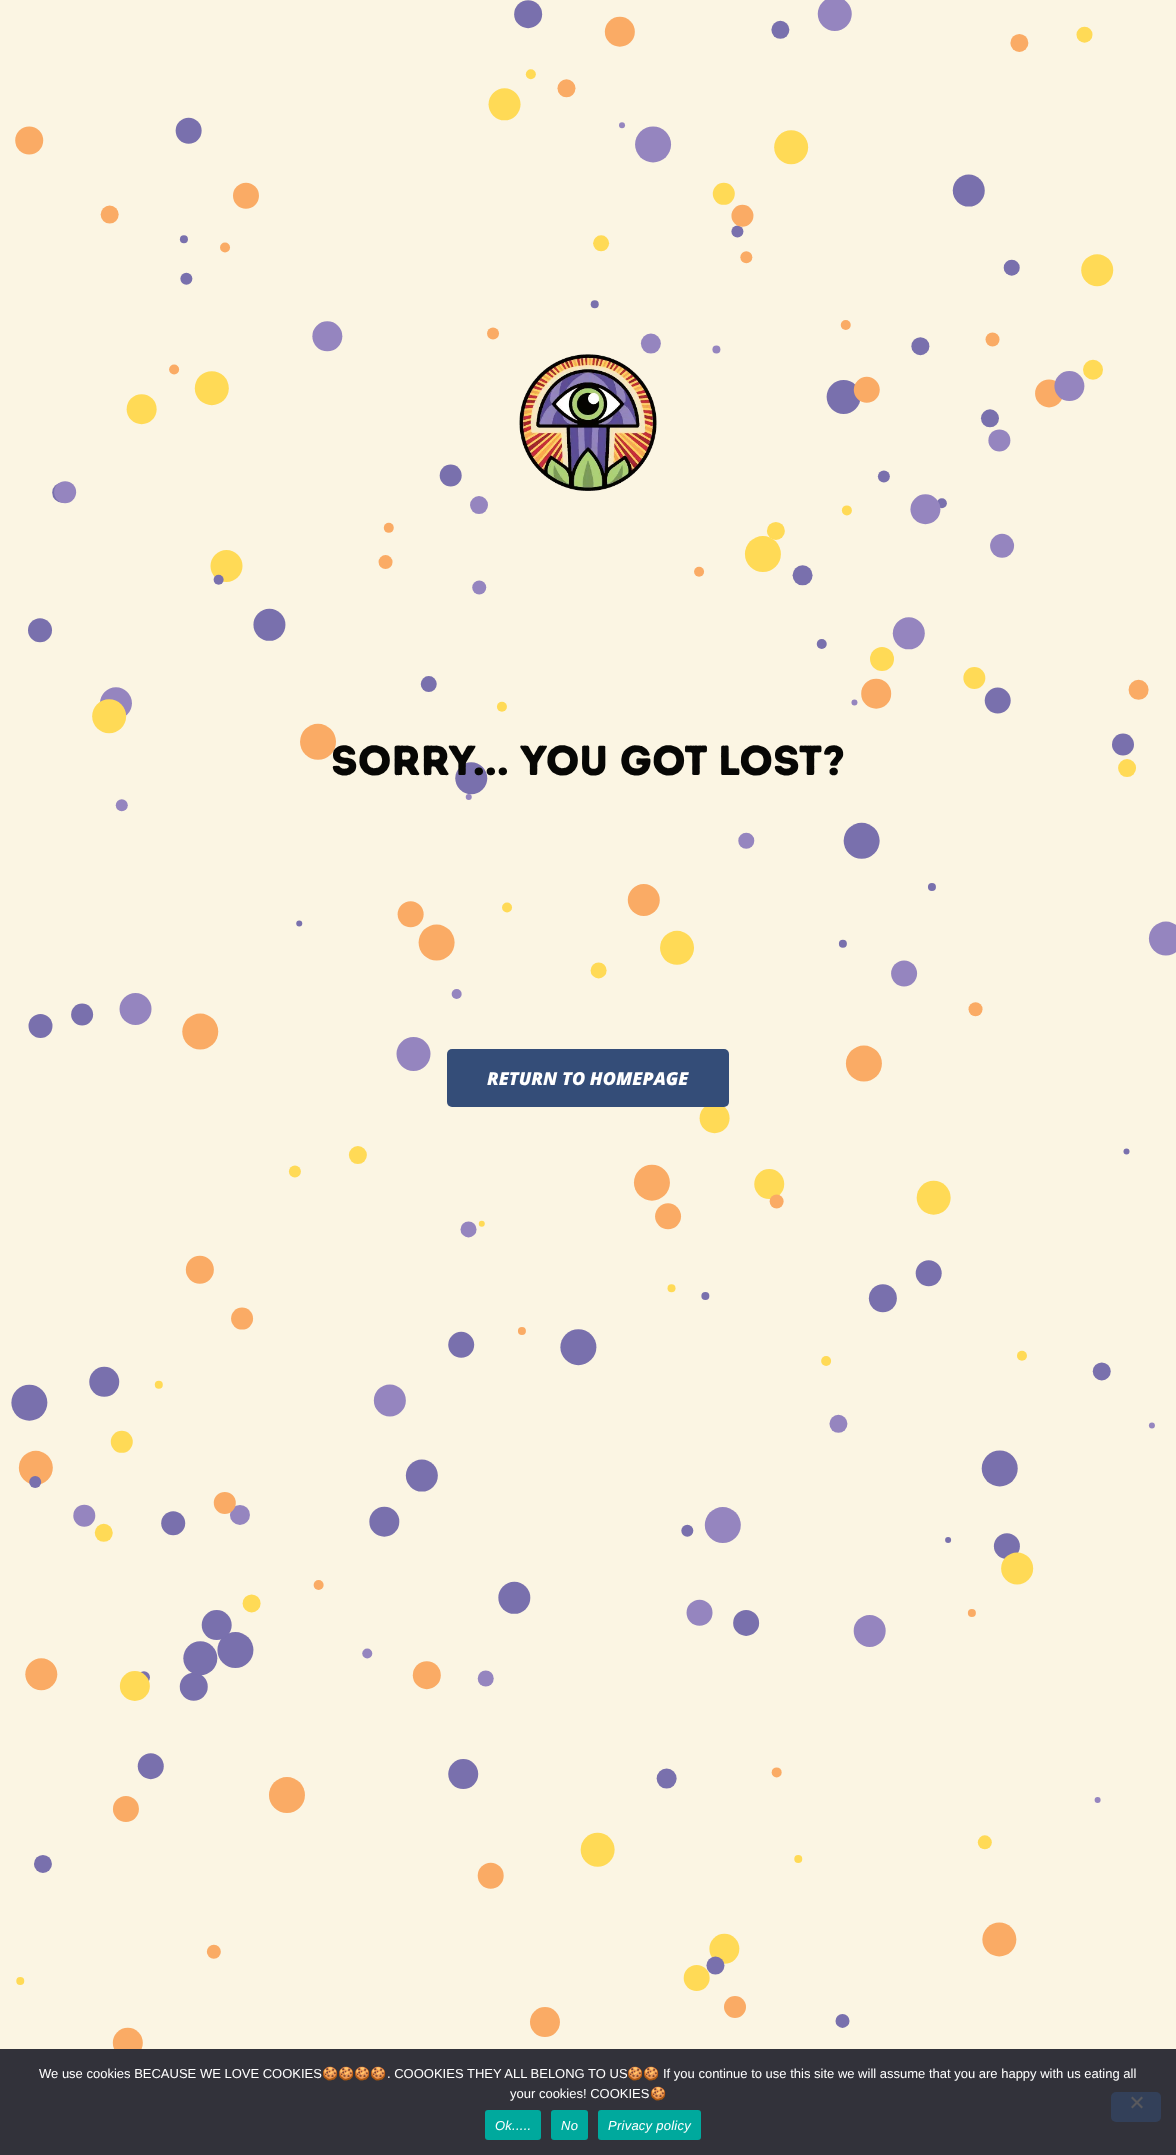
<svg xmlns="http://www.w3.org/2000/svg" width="1176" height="2155">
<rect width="100%" height="100%" fill="#fbf5e3"/>
<image x="11" y="0" width="1165" height="2049" href="media/1.png"/>
<image x="519" y="354" width="138" height="137" href="media/2.png"/>
<text x="331" y="775" style="font-family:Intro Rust;font-size:42px;fill:#070705">SORRY... YOU GOT LOST?</text>
<rect x="447" y="1049" width="282" height="58" rx="5" fill="#344d78"/>
<text x="487" y="1085" style="font-family:Open Sans;font-size:18px;font-weight:800;font-style:italic;fill:#fff">RETURN TO HOMEPAGE</text>
<rect y="2049" width="1176" height="106" fill="#32323a"/>
<text x="39" y="2078" style="font-family:Liberation Sans;font-size:13px;fill:#fff">We use cookies BECAUSE WE LOVE COOKIES</text>
<text x="322" y="2078" style="font-family:Noto Color Emoji;font-size:13px;fill:#fff">🍪🍪🍪🍪</text>
<text x="387" y="2078" style="font-family:Liberation Sans;font-size:13px;fill:#fff">. COOOKIES THEY ALL BELONG TO US</text>
<text x="627" y="2078" style="font-family:Noto Color Emoji;font-size:13px;fill:#fff">🍪🍪</text>
<text x="663" y="2078" style="font-family:Liberation Sans;font-size:13px;fill:#fff">If you continue to use this site we will assume that you are happy with us eating all</text>
<text x="510" y="2098" style="font-family:Liberation Sans;font-size:13px;fill:#fff">your cookies! COOKIES</text>
<text x="650" y="2098" style="font-family:Noto Color Emoji;font-size:13px;fill:#fff">🍪</text>
<rect x="1111" y="2092" width="50" height="30" rx="5" fill="#334059"/>
<path d="M1141.5 2096.5l1.5 1.5l-10.5 10.5l-1.5-1.5z" fill="#59595d"/>
<path d="M1131 2098l1.5-1.5l10.5 10.5l-1.5 1.5z" fill="#59595d"/>
<rect x="485" y="2110" width="56" height="30" rx="3" fill="#00a99d"/>
<text x="495" y="2130" style="font-family:Liberation Sans;font-size:13px;font-style:italic;letter-spacing:0.25px;fill:#fff">Ok.....</text>
<rect x="551" y="2110" width="37" height="30" rx="3" fill="#00a99d"/>
<text x="561" y="2130" style="font-family:Liberation Sans;font-size:13px;font-style:italic;letter-spacing:0.25px;fill:#fff">No</text>
<rect x="598" y="2110" width="103" height="30" rx="3" fill="#00a99d"/>
<text x="608" y="2130" style="font-family:Liberation Sans;font-size:13px;font-style:italic;letter-spacing:0.25px;fill:#fff">Privacy policy</text>
</svg>
